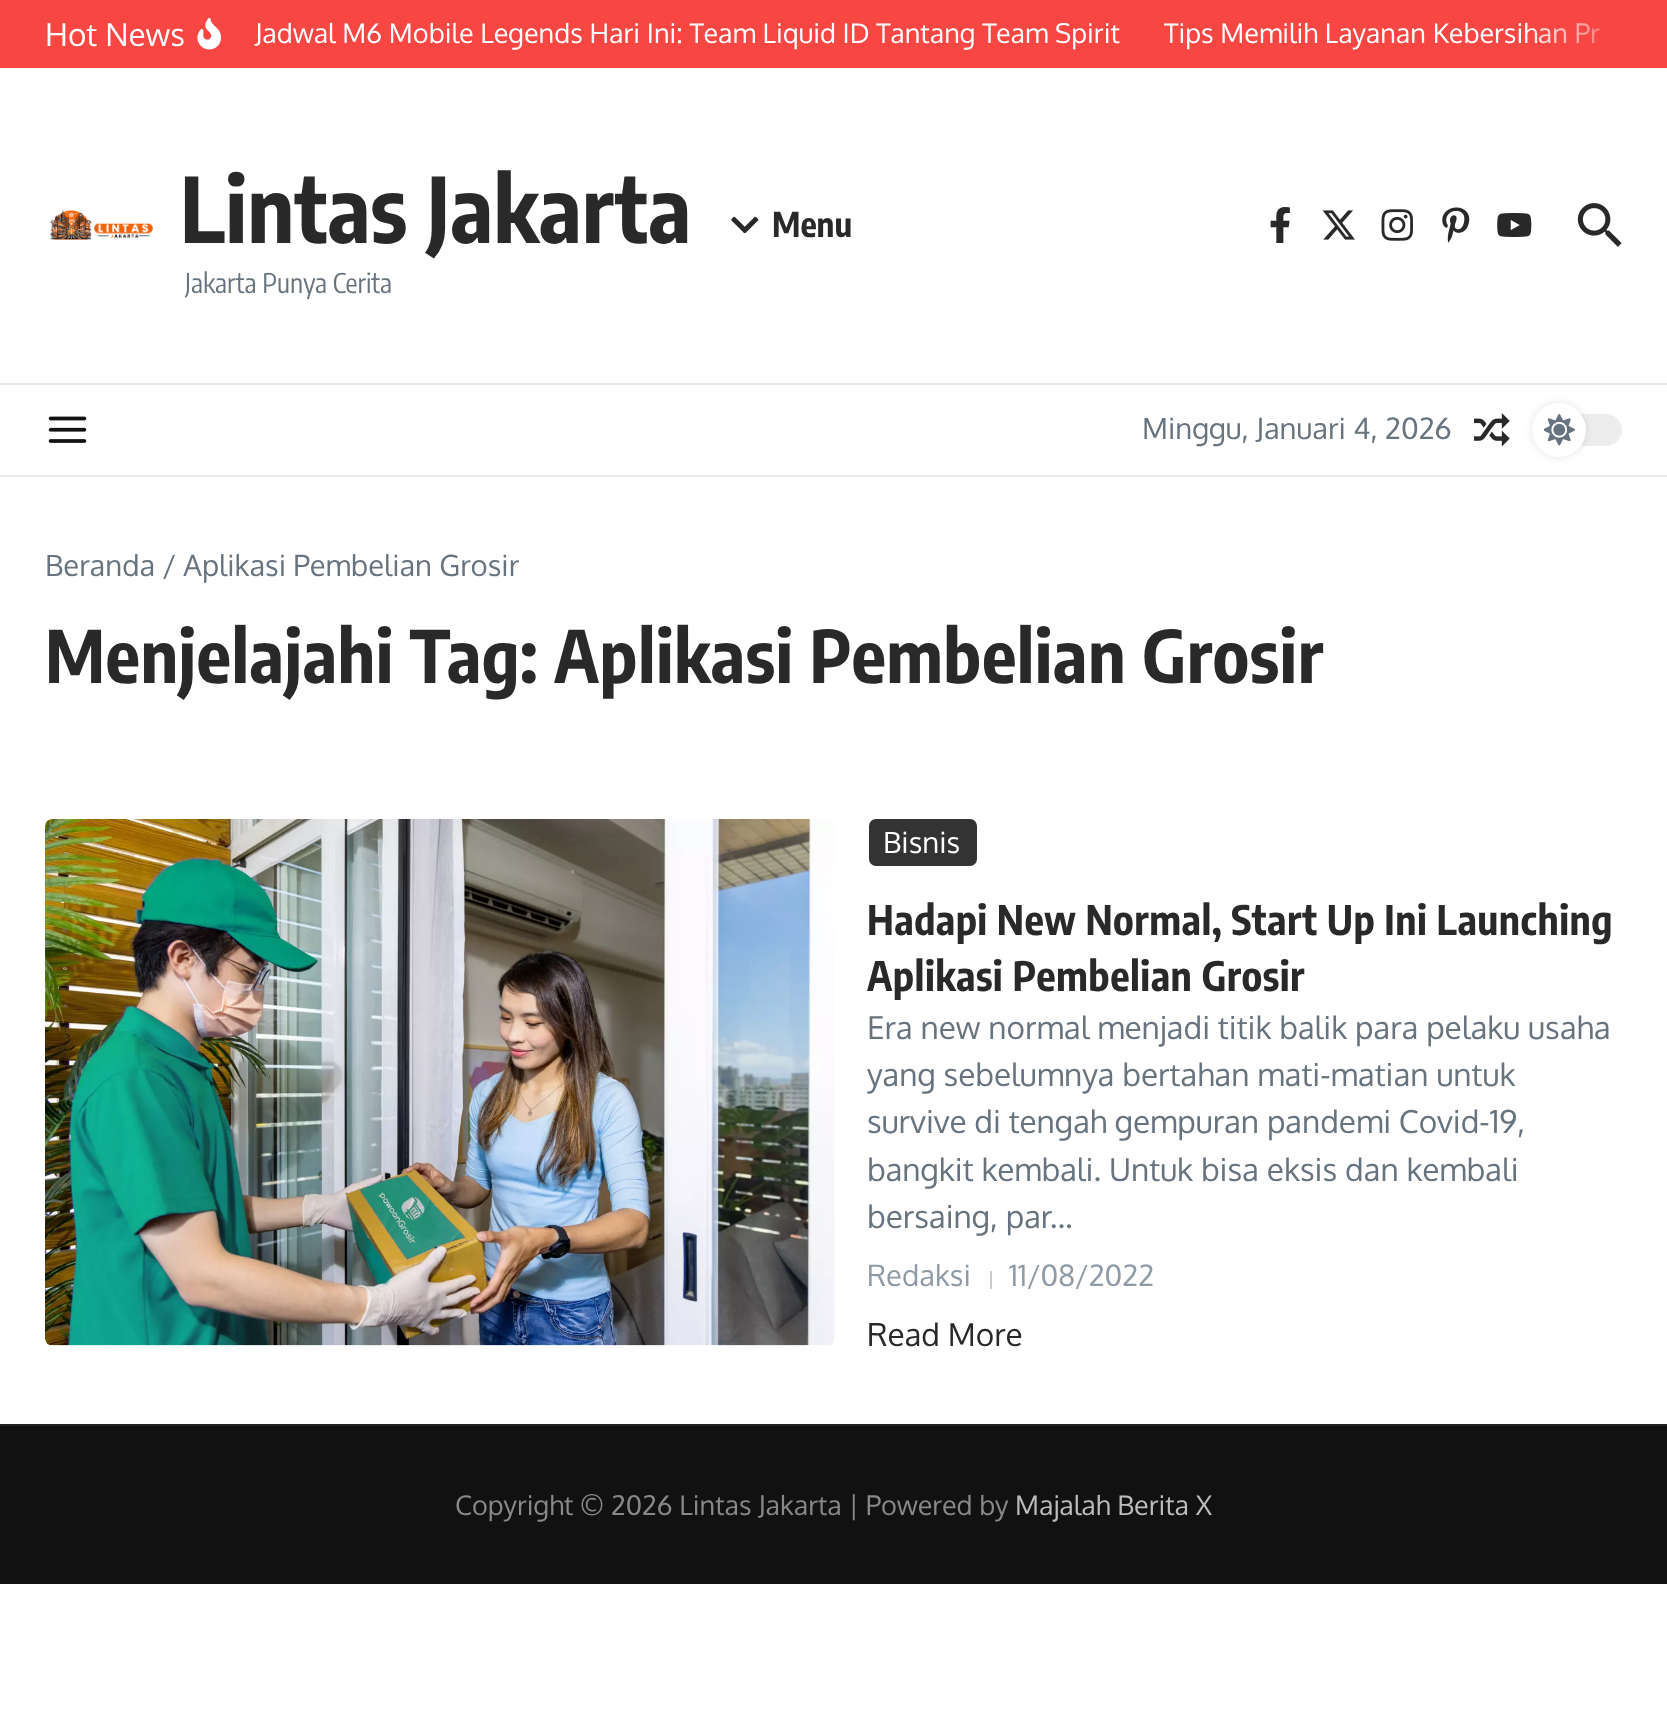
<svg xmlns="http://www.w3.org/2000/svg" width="1667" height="1724">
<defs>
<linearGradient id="g1" gradientUnits="userSpaceOnUse" x1="1523" y1="34" x2="1636" y2="34"><stop offset="0" stop-color="#f84643" stop-opacity="0"/><stop offset="1" stop-color="#f84643"/></linearGradient>
</defs>
<rect width="100%" height="100%" fill="#fff"/>
<rect width="1667" height="68" fill="#f84643"/>
<text x="45" y="46" style="font-family:Oxygen;font-size:31.5px;fill:#fff">Hot News</text>
<image x="197" y="18" width="25" height="32" href="media/1.png"/>
<text x="255" y="43" style="font-family:Oxygen;font-size:27px;fill:#fff">Jadwal M6 Mobile Legends Hari Ini: Team Liquid ID Tantang Team Spirit</text>
<text x="1164" y="43" style="font-family:Oxygen;font-size:27px;fill:#fff">Tips Memilih Layanan Kebersihan Pr</text>
<rect x="1525" y="23" width="75" height="21" fill="url(#g1)"/>
<rect y="383" width="1667" height="2" fill="#e8e8e8"/>
<image x="50" y="209" width="103" height="31" href="media/2.png"/>
<text x="180" y="243" style="font-family:Encode Sans Condensed;font-size:90px;font-weight:bold;fill:#292929">Lintas Jakarta</text>
<text x="185" y="293" style="font-family:Encode Sans Condensed;font-size:27px;fill:#67737e">Jakarta Punya Cerita</text>
<image x="731" y="216" width="28" height="18" href="media/3.png"/>
<text x="772" y="237" style="font-family:Encode Sans Condensed;font-size:34px;font-weight:bold;fill:#292929">Menu</text>
<image x="1270" y="207" width="20" height="36" href="media/4.png"/>
<image x="1322" y="210" width="33" height="30" href="media/5.png"/>
<image x="1381" y="209" width="32" height="32" href="media/6.png"/>
<image x="1442" y="207" width="28" height="36" href="media/7.png"/>
<image x="1497" y="213" width="35" height="24" href="media/8.png"/>
<image x="1577" y="203" width="45" height="44" href="media/9.png"/>
<rect y="475" width="1667" height="2" fill="#e8e8e8"/>
<image x="48" y="416" width="39" height="27" href="media/10.png"/>
<text x="1142" y="439" style="font-family:Oxygen;font-size:29.25px;fill:#67737e">Minggu, Januari 4, 2026</text>
<image x="1474" y="413" width="36" height="34" href="media/11.png"/>
<rect x="1532" y="414" width="90" height="32" rx="16" fill="#ededed"/>
<rect x="1532" y="403" width="54" height="54" rx="27" fill="#0000001a" filter="blur(4.5px)"/>
<circle cx="1559" cy="430" r="27" fill="#fff"/>
<image x="1544" y="414" width="31" height="32" href="media/12.png"/>
<text x="45" y="576" style="font-family:Oxygen;font-size:29.25px;fill:#67737e">Beranda / Aplikasi Pembelian Grosir</text>
<text x="45" y="683" style="font-family:Encode Sans Condensed;font-size:72px;font-weight:bold;letter-spacing:0.45px;fill:#292929">Menjelajahi Tag: Aplikasi Pembelian Grosir</text>
<image x="45" y="819" width="790" height="527" href="media/13.png"/>
<rect x="869" y="819" width="108" height="47" rx="7" fill="#333"/>
<text x="883" y="853" style="font-family:Oxygen;font-size:29.25px;fill:#fff">Bisnis</text>
<text x="867" y="935" style="font-family:Encode Sans Condensed;font-size:40.5px;font-weight:bold;letter-spacing:0.45px;fill:#292929">Hadapi New Normal, Start Up Ini Launching</text>
<text x="867" y="991" style="font-family:Encode Sans Condensed;font-size:40.5px;font-weight:bold;letter-spacing:0.45px;fill:#292929">Aplikasi Pembelian Grosir</text>
<text x="867" y="1039" style="font-family:Oxygen;font-size:31.5px;fill:#67737e">Era new normal menjadi titik balik para pelaku usaha</text>
<text x="867" y="1086" style="font-family:Oxygen;font-size:31.5px;fill:#67737e">yang sebelumnya bertahan mati-matian untuk</text>
<text x="867" y="1133" style="font-family:Oxygen;font-size:31.5px;fill:#67737e">survive di tengah gempuran pandemi Covid-19,</text>
<text x="867" y="1181" style="font-family:Oxygen;font-size:31.5px;fill:#67737e">bangkit kembali. Untuk bisa eksis dan kembali</text>
<text x="867" y="1228" style="font-family:Oxygen;font-size:31.5px;fill:#67737e">bersaing, par...</text>
<text x="867" y="1286" style="font-family:Oxygen;font-size:29.25px;fill:#8e9ba7">Redaksi</text>
<rect x="990" y="1271" width="2" height="18" fill="#c7cdd3"/>
<text x="1009" y="1286" style="font-family:Oxygen;font-size:29.25px;fill:#8e9ba7">11/08/2022</text>
<text x="867" y="1346" style="font-family:Oxygen;font-size:31.5px;fill:#292929">Read More</text>
<rect y="1426" width="1667" height="158" fill="#111"/>
<rect y="1424" width="1667" height="2" fill="#222"/>
<text x="455" y="1515" style="font-family:Oxygen;font-size:27px;fill:#888">Copyright © 2026 Lintas Jakarta | Powered by</text>
<text x="1015" y="1515" style="font-family:Oxygen;font-size:27px;fill:#bcbcbc">Majalah Berita X</text>
</svg>
